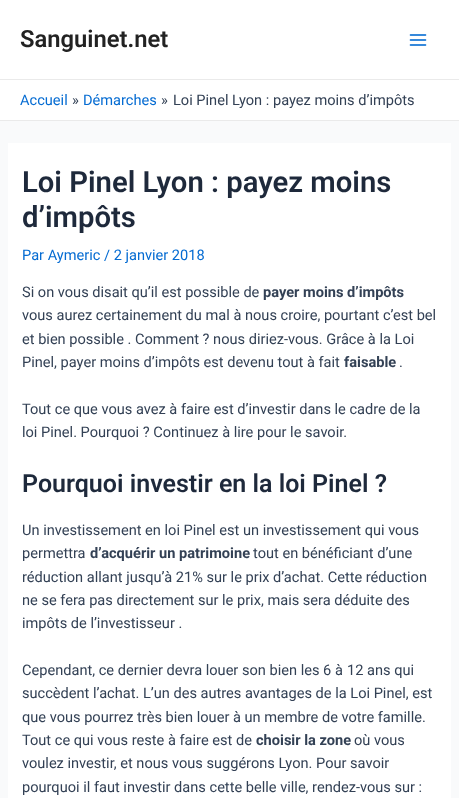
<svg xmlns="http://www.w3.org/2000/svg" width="459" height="798">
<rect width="100%" height="100%" fill="#f9fafb"/>
<rect width="459" height="79" fill="#fff"/>
<rect y="79" width="459" height="1" fill="#eaeaea"/>
<text x="20" y="47" style="font-family:Roboto;font-size:23.75px;font-weight:600;fill:#222">Sanguinet.net</text>
<image x="409" y="34" width="18" height="12" href="media/1.png"/>
<rect y="80" width="459" height="40" fill="#fff"/>
<rect y="120" width="459" height="1" fill="#eaeaea"/>
<text x="20" y="105" style="font-family:Roboto;font-size:14.6px;fill:#046bd2">Accueil</text>
<text x="72" y="105" style="font-family:Roboto;font-size:14.6px;fill:#334155">»</text>
<text x="83" y="105" style="font-family:Roboto;font-size:14.6px;fill:#046bd2">Démarches</text>
<text x="161" y="105" style="font-family:Roboto;font-size:14.6px;fill:#334155">»</text>
<text x="173" y="105" style="font-family:Roboto;font-size:14.6px;fill:#334155">Loi Pinel Lyon : payez moins d’impôts</text>
<rect x="8" y="143" width="443" height="655" fill="#fff"/>
<text x="22" y="192" style="font-family:Roboto;font-size:29.25px;font-weight:600;fill:#1e293b">Loi Pinel Lyon : payez moins</text>
<text x="22" y="227" style="font-family:Roboto;font-size:29.25px;font-weight:600;fill:#1e293b">d’impôts</text>
<text x="22" y="260" style="font-family:Roboto;font-size:14.6px;fill:#046bd2">Par Aymeric / 2 janvier 2018</text>
<text x="22" y="297" style="font-family:Roboto;font-size:14.6px;fill:#334155">Si on vous disait qu’il est possible de</text>
<text x="263" y="297" style="font-family:Roboto;font-size:14.6px;font-weight:bold;fill:#334155">payer moins d’impôts</text>
<text x="22" y="320" style="font-family:Roboto;font-size:14.6px;fill:#334155">vous aurez certainement du mal à nous croire, pourtant c’est bel</text>
<text x="22" y="344" style="font-family:Roboto;font-size:14.6px;fill:#334155">et bien possible . Comment ? nous diriez-vous. Grâce à la Loi</text>
<text x="22" y="367" style="font-family:Roboto;font-size:14.6px;fill:#334155">Pinel, payer moins d’impôts est devenu tout à fait</text>
<text x="344" y="367" style="font-family:Roboto;font-size:14.6px;font-weight:bold;fill:#334155">faisable</text>
<text x="399" y="367" style="font-family:Roboto;font-size:14.6px;fill:#334155">.</text>
<text x="22" y="414" style="font-family:Roboto;font-size:14.6px;fill:#334155">Tout ce que vous avez à faire est d’investir dans le cadre de la</text>
<text x="22" y="437" style="font-family:Roboto;font-size:14.6px;fill:#334155">loi Pinel. Pourquoi ? Continuez à lire pour le savoir.</text>
<text x="22" y="492" style="font-family:Roboto;font-size:25px;font-weight:600;fill:#1e293b">Pourquoi investir en la loi Pinel ?</text>
<text x="22" y="535" style="font-family:Roboto;font-size:14.6px;fill:#334155">Un investissement en loi Pinel est un investissement qui vous</text>
<text x="22" y="558" style="font-family:Roboto;font-size:14.6px;fill:#334155">permettra</text>
<text x="90" y="558" style="font-family:Roboto;font-size:14.6px;font-weight:bold;fill:#334155">d’acquérir un patrimoine</text>
<text x="253" y="558" style="font-family:Roboto;font-size:14.6px;fill:#334155">tout en bénéficiant d’une</text>
<text x="22" y="582" style="font-family:Roboto;font-size:14.6px;fill:#334155">réduction allant jusqu’à 21% sur le prix d’achat. Cette réduction</text>
<text x="22" y="605" style="font-family:Roboto;font-size:14.6px;fill:#334155">ne se fera pas directement sur le prix, mais sera déduite des</text>
<text x="22" y="628" style="font-family:Roboto;font-size:14.6px;fill:#334155">impôts de l’investisseur .</text>
<text x="22" y="675" style="font-family:Roboto;font-size:14.6px;fill:#334155">Cependant, ce dernier devra louer son bien les 6 à</text>
<text x="347" y="675" style="font-family:Roboto;font-size:14.6px;fill:#334155">12 ans qui</text>
<text x="22" y="698" style="font-family:Roboto;font-size:14.6px;fill:#334155">succèdent l’achat. L’un des autres avantages de la Loi Pinel, est</text>
<text x="22" y="722" style="font-family:Roboto;font-size:14.6px;fill:#334155">que vous pourrez très bien louer à un membre de votre famille.</text>
<text x="22" y="745" style="font-family:Roboto;font-size:14.6px;fill:#334155">Tout ce qui vous reste à faire est de</text>
<text x="256" y="745" style="font-family:Roboto;font-size:14.6px;font-weight:bold;fill:#334155">choisir la zone</text>
<text x="354" y="745" style="font-family:Roboto;font-size:14.6px;fill:#334155">où vous</text>
<text x="22" y="768" style="font-family:Roboto;font-size:14.6px;fill:#334155">voulez investir, et nous vous suggérons Lyon. Pour savoir</text>
<text x="22" y="792" style="font-family:Roboto;font-size:14.6px;fill:#334155">pourquoi il faut investir dans cette belle ville, rendez-vous sur :</text>
</svg>
